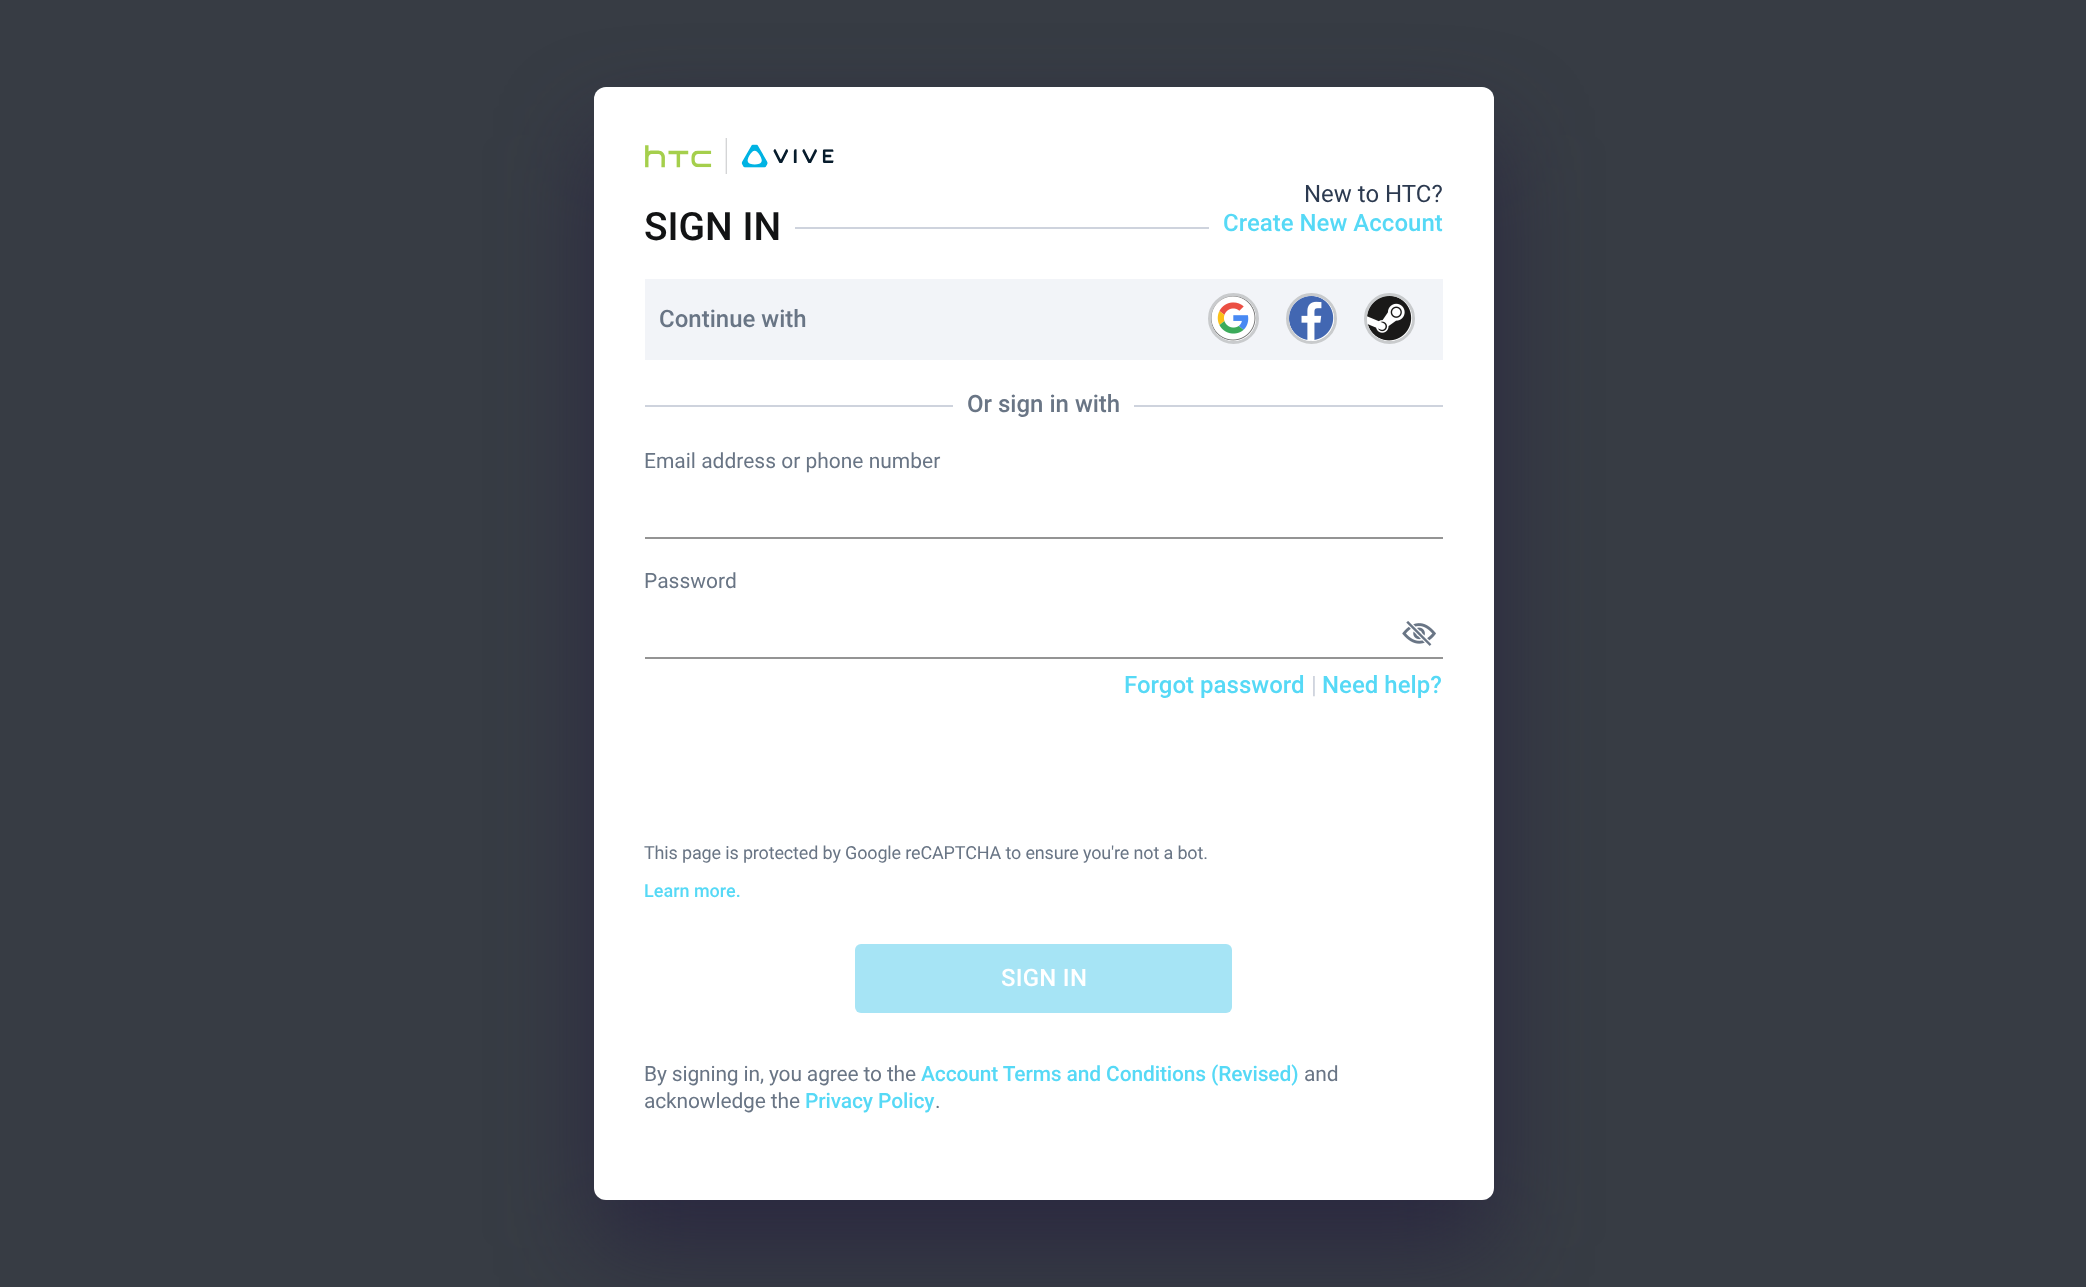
<svg xmlns="http://www.w3.org/2000/svg" width="2086" height="1287">
<rect width="100%" height="100%" fill="#373c44"/>
<rect x="594" y="135" width="900" height="1113" rx="18" fill="#231d3da6" filter="blur(48px)"/>
<rect x="594" y="87" width="900" height="1113" rx="12" fill="#fff"/>
<image x="645" y="138" width="189" height="36" href="media/1.png"/>
<rect x="795" y="227" width="414" height="2" fill="#ced3dd"/>
<text x="644" y="240" style="font-family:Roboto;font-size:39px;font-weight:500;fill:#121314">SIGN IN</text>
<text x="1304" y="202" style="font-family:Roboto;font-size:24px;fill:#2c3a50">New to HTC?</text>
<text x="1223" y="231" style="font-family:Roboto;font-size:24px;font-weight:500;fill:#56d9f6">Create New Account</text>
<rect x="645" y="279" width="798" height="81" fill="#f2f4f8"/>
<text x="659" y="327" style="font-family:Roboto;font-size:24px;font-weight:500;fill:#697585">Continue with</text>
<circle cx="1233.5" cy="318.5" r="24" fill="none" stroke="#c9cbcd" stroke-width="3"/>
<circle cx="1233.5" cy="318.5" r="22.5" fill="#fff"/>
<image x="1211" y="296" width="45" height="45" href="media/2.png"/>
<circle cx="1311.5" cy="318.5" r="24" fill="none" stroke="#c9cbcd" stroke-width="3"/>
<circle cx="1311.5" cy="318.5" r="22.5" fill="#fff"/>
<image x="1289" y="296" width="45" height="45" href="media/3.png"/>
<circle cx="1389.5" cy="318.5" r="24" fill="none" stroke="#c9cbcd" stroke-width="3"/>
<circle cx="1389.5" cy="318.5" r="22.5" fill="#fff"/>
<image x="1367" y="296" width="45" height="45" href="media/4.png"/>
<rect x="645" y="405" width="308" height="2" fill="#ced3dd"/>
<text x="967" y="412" style="font-family:Roboto;font-size:24px;font-weight:500;fill:#697585">Or sign in with</text>
<rect x="1134" y="405" width="309" height="2" fill="#ced3dd"/>
<text x="644" y="468" style="font-family:Roboto;font-size:21px;fill:#697585">Email address or phone number</text>
<rect x="645" y="537" width="798" height="2" fill="#949494"/>
<text x="644" y="588" style="font-family:Roboto;font-size:21px;fill:#697585">Password</text>
<rect x="645" y="657" width="798" height="2" fill="#949494"/>
<image x="1402" y="621" width="34" height="25" href="media/5.png"/>
<text x="1124" y="693" style="font-family:Roboto;font-size:24px;font-weight:500;fill:#56d9f6">Forgot password</text>
<text x="1311" y="693" style="font-family:Roboto;font-size:24px;fill:#ced3dd">|</text>
<text x="1322" y="693" style="font-family:Roboto;font-size:24px;font-weight:500;fill:#56d9f6">Need help?</text>
<text x="644" y="859" style="font-family:Roboto;font-size:18px;letter-spacing:-0.15px;fill:#697585">This page is protected by Google reCAPTCHA to ensure you're not a bot.</text>
<text x="644" y="897" style="font-family:Roboto;font-size:18px;font-weight:500;fill:#56d9f6">Learn more.</text>
<rect x="855" y="944" width="377" height="69" rx="6" fill="#a6e4f5"/>
<text x="1001" y="986" style="font-family:Roboto;font-size:24px;font-weight:500;letter-spacing:0.25px;fill:#fff">SIGN IN</text>
<text x="644" y="1081" style="font-family:Roboto;font-size:21px;letter-spacing:-0.15px;fill:#697585">By signing in, you agree to the</text>
<text x="921" y="1081" style="font-family:Roboto;font-size:21px;font-weight:500;letter-spacing:-0.15px;fill:#56d9f6">Account Terms and Conditions (Revised)</text>
<text x="1304" y="1081" style="font-family:Roboto;font-size:21px;letter-spacing:-0.15px;fill:#697585">and</text>
<text x="644" y="1108" style="font-family:Roboto;font-size:21px;letter-spacing:-0.15px;fill:#697585">acknowledge the</text>
<text x="805" y="1108" style="font-family:Roboto;font-size:21px;font-weight:500;letter-spacing:-0.15px;fill:#56d9f6">Privacy Policy</text>
<text x="935" y="1108" style="font-family:Roboto;font-size:21px;letter-spacing:-0.15px;fill:#697585">.</text>
</svg>
